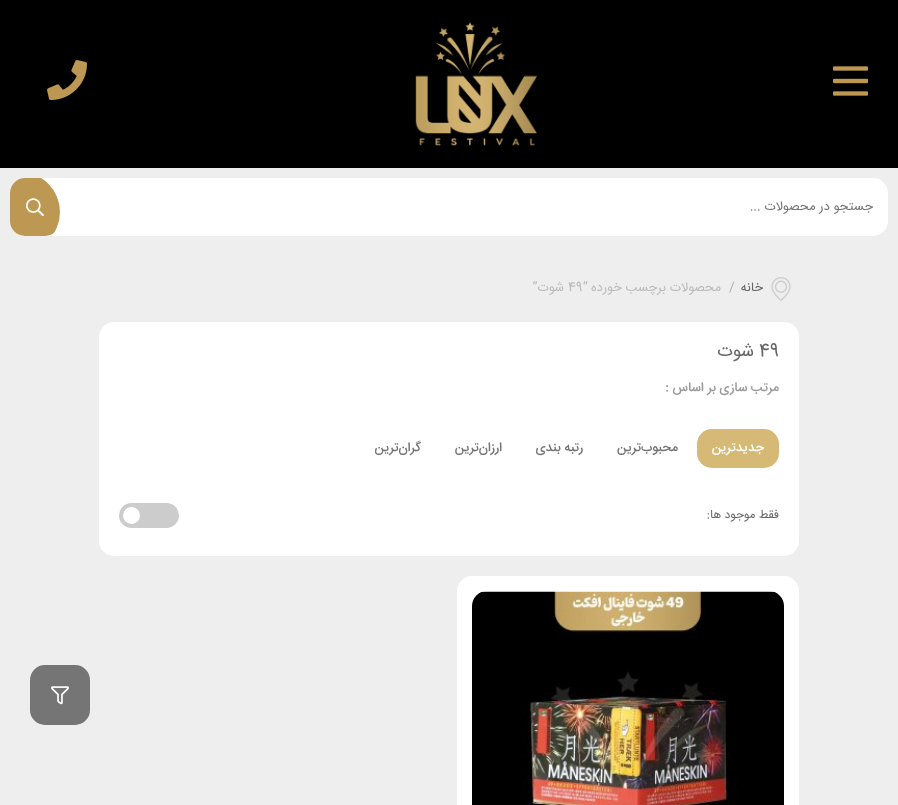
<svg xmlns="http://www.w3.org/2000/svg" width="898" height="805">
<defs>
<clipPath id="clip1"><rect x="10" y="178" width="50" height="58" rx="15"/></clipPath>
</defs>
<rect width="100%" height="100%" fill="#eee"/>
<rect width="898" height="168" fill="#000"/>
<image x="833" y="66" width="35" height="30" href="media/1.png"/>
<image x="415" y="22" width="122" height="124" href="media/2.png"/>
<image x="47" y="60" width="40" height="40" href="media/3.png"/>
<rect x="10" y="178" width="878" height="58" rx="15" fill="#fff"/>
<text x="873" y="210" style="font-family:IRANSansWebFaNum;font-size:13px;direction:rtl;fill:#757575">جستجو در محصولات ...</text>
<rect x="10" y="178" width="50" height="58" rx="15" fill="#fff"/>
<g clip-path="url(#clip1)">
<circle cx="20" cy="212" r="40" fill="#bd9852"/>
</g>
<image x="26" y="198" width="18" height="19" href="media/4.png"/>
<image x="771" y="277" width="20" height="24" href="media/5.png"/>
<text x="763" y="291" style="font-family:IRANSansWebFaNum;font-size:13px;direction:rtl;fill:#666">خانه</text>
<text x="729" y="291" style="font-family:IRANSansWebFaNum;font-size:13px;fill:#aeaeae">/</text>
<text x="721" y="291" style="font-family:IRANSansWebFaNum;font-size:13px;direction:rtl;fill:#bbb">محصولات برچسب خورده</text>
<text x="568" y="291" style="font-family:IRANSansWebFaNum;font-size:13px;fill:#bbb">49“</text>
<text x="564" y="291" style="font-family:IRANSansWebFaNum;font-size:13px;direction:rtl;fill:#bbb">شوت”</text>
<rect x="99" y="322" width="700" height="234" rx="15" fill="#fff"/>
<text x="759" y="356" style="font-family:IRANSansWebFaNum;font-size:18px;fill:#666">49</text>
<text x="754" y="356" style="font-family:IRANSansWebFaNum;font-size:18px;direction:rtl;fill:#666">شوت</text>
<text x="779" y="391" style="font-family:IRANSansWebFaNum;font-size:13px;font-weight:500;direction:rtl;fill:#999">مرتب سازی بر اساس :</text>
<rect x="697" y="429" width="82" height="39" rx="15" fill="#d5b975"/>
<text x="764" y="451" style="font-family:IRANSansWebFaNum;font-size:13px;font-weight:500;direction:rtl;fill:#fff">جدیدترین</text>
<text x="678" y="451" style="font-family:IRANSansWebFaNum;font-size:13px;font-weight:500;direction:rtl;fill:#757575">محبوب‌ترین</text>
<text x="583" y="451" style="font-family:IRANSansWebFaNum;font-size:13px;font-weight:500;direction:rtl;fill:#757575">رتبه بندی</text>
<text x="502" y="451" style="font-family:IRANSansWebFaNum;font-size:13px;font-weight:500;direction:rtl;fill:#757575">ارزان‌ترین</text>
<text x="421" y="451" style="font-family:IRANSansWebFaNum;font-size:13px;font-weight:500;direction:rtl;fill:#757575">گران‌ترین</text>
<text x="779" y="518" style="font-family:IRANSansWebFaNum;font-size:12px;direction:rtl;fill:#666">فقط موجود ها:</text>
<rect x="119" y="503" width="60" height="25" rx="12.5" fill="#ccc"/>
<circle cx="131.5" cy="515.5" r="8.5" fill="#fff"/>
<rect x="457" y="576" width="342" height="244" rx="15" fill="#fff"/>
<image x="472" y="591" width="312" height="214" href="media/6.png"/>
<rect x="30" y="665" width="60" height="60" rx="15" fill="#757575"/>
<image x="51" y="686" width="18" height="19" href="media/7.png"/>
</svg>
